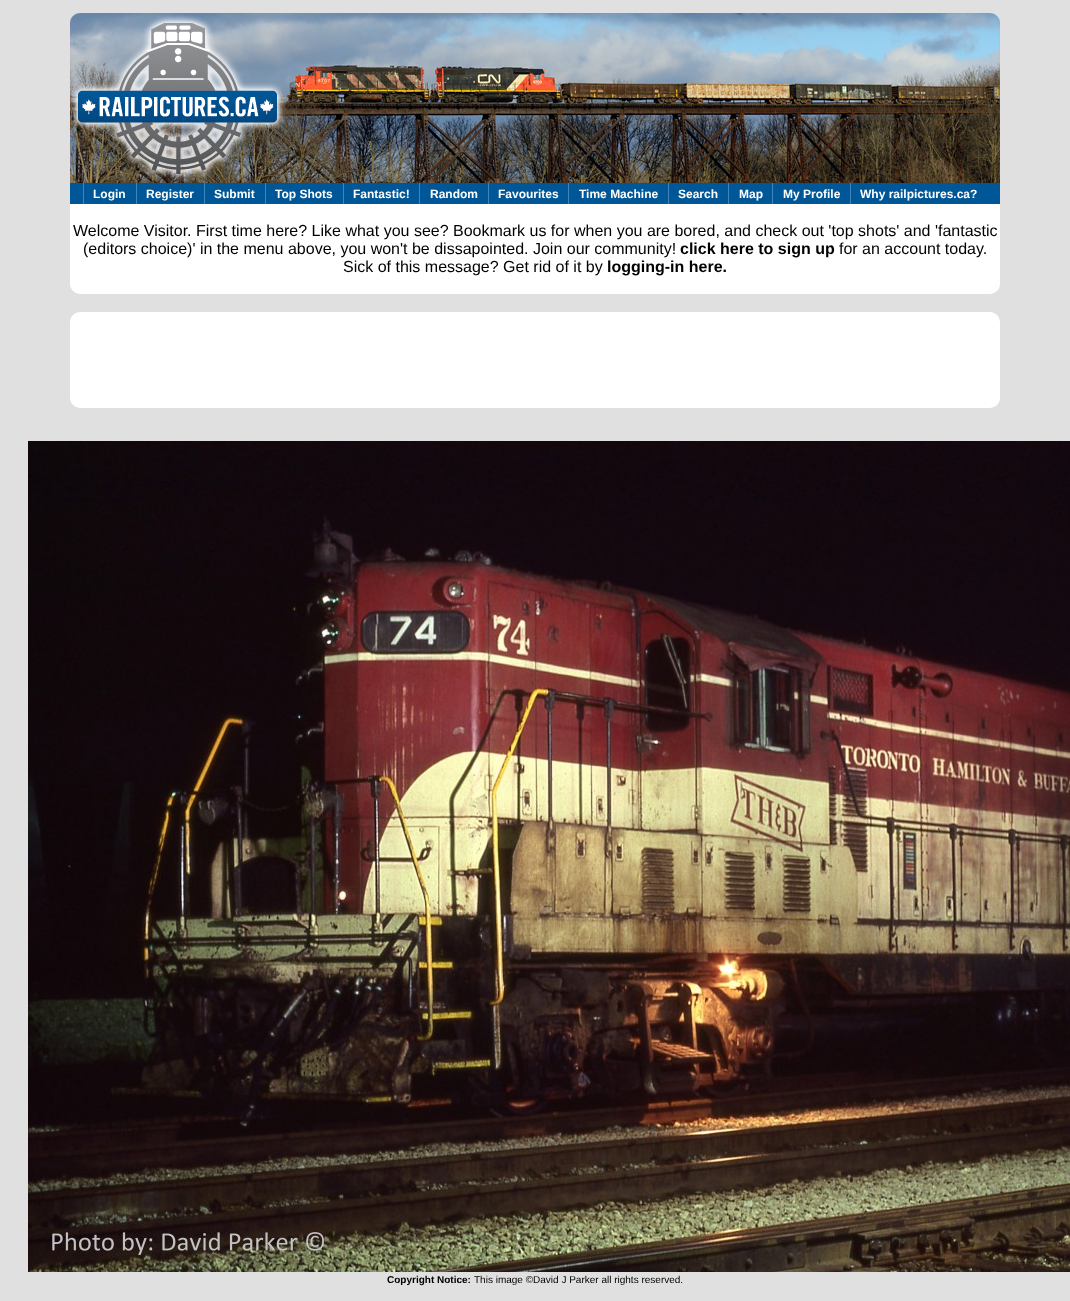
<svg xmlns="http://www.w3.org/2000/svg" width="1070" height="1301">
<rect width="100%" height="100%" fill="#e0e0e0"/>
<rect x="70" y="13" width="930" height="281" rx="10" fill="#fff"/>
<image x="70" y="13" width="930" height="170" href="media/1.png"/>
<rect x="70" y="183" width="930" height="21" fill="#005797"/>
<rect x="83" y="183" width="1" height="21" fill="#4283b9"/>
<text x="93" y="198" style="font-family:Liberation Sans;font-size:12px;font-weight:bold;fill:#fff">Login</text>
<rect x="136" y="183" width="1" height="21" fill="#4283b9"/>
<text x="146" y="198" style="font-family:Liberation Sans;font-size:12px;font-weight:bold;fill:#fff">Register</text>
<rect x="204" y="183" width="1" height="21" fill="#4283b9"/>
<text x="214" y="198" style="font-family:Liberation Sans;font-size:12px;font-weight:bold;fill:#fff">Submit</text>
<rect x="265" y="183" width="1" height="21" fill="#4283b9"/>
<text x="275" y="198" style="font-family:Liberation Sans;font-size:12px;font-weight:bold;fill:#fff">Top Shots</text>
<rect x="343" y="183" width="1" height="21" fill="#4283b9"/>
<text x="353" y="198" style="font-family:Liberation Sans;font-size:12px;font-weight:bold;fill:#fff">Fantastic!</text>
<rect x="419" y="183" width="1" height="21" fill="#4283b9"/>
<text x="430" y="198" style="font-family:Liberation Sans;font-size:12px;font-weight:bold;fill:#fff">Random</text>
<rect x="488" y="183" width="1" height="21" fill="#4283b9"/>
<text x="498" y="198" style="font-family:Liberation Sans;font-size:12px;font-weight:bold;fill:#fff">Favourites</text>
<rect x="568" y="183" width="1" height="21" fill="#4283b9"/>
<text x="579" y="198" style="font-family:Liberation Sans;font-size:12px;font-weight:bold;fill:#fff">Time Machine</text>
<rect x="668" y="183" width="1" height="21" fill="#4283b9"/>
<text x="678" y="198" style="font-family:Liberation Sans;font-size:12px;font-weight:bold;fill:#fff">Search</text>
<rect x="728" y="183" width="1" height="21" fill="#4283b9"/>
<text x="739" y="198" style="font-family:Liberation Sans;font-size:12px;font-weight:bold;fill:#fff">Map</text>
<rect x="772" y="183" width="1" height="21" fill="#4283b9"/>
<text x="783" y="198" style="font-family:Liberation Sans;font-size:12px;font-weight:bold;fill:#fff">My Profile</text>
<rect x="850" y="183" width="1" height="21" fill="#4283b9"/>
<text x="860" y="198" style="font-family:Liberation Sans;font-size:12px;font-weight:bold;fill:#fff">Why railpictures.ca?</text>
<text x="73" y="236" style="font-family:Liberation Sans;font-size:16px;fill:#000">Welcome Visitor. First time here? Like what you see? Bookmark us for when you are bored, and check out 'top shots' and 'fantastic</text>
<text x="83" y="254" style="font-family:Liberation Sans;font-size:16px;fill:#000">(editors choice)' in the menu above, you won't be dissapointed. Join our community!</text>
<text x="680" y="254" style="font-family:Liberation Sans;font-size:16px;font-weight:bold;fill:#000">click here to sign up</text>
<text x="839" y="254" style="font-family:Liberation Sans;font-size:16px;fill:#000">for an account today.</text>
<text x="343" y="272" style="font-family:Liberation Sans;font-size:16px;fill:#000">Sick of this message? Get rid of it by</text>
<text x="607" y="272" style="font-family:Liberation Sans;font-size:16px;font-weight:bold;fill:#000">logging-in here.</text>
<rect x="70" y="312" width="930" height="96" rx="10" fill="#fff"/>
<image x="28" y="441" width="1042" height="831" href="media/2.png"/>
<text x="387" y="1283" style="font-family:Liberation Sans;font-size:10px;font-weight:bold;fill:#000">Copyright Notice:</text>
<text x="474" y="1283" style="font-family:Liberation Sans;font-size:10px;fill:#000">This image ©David J Parker all rights reserved.</text>
</svg>
